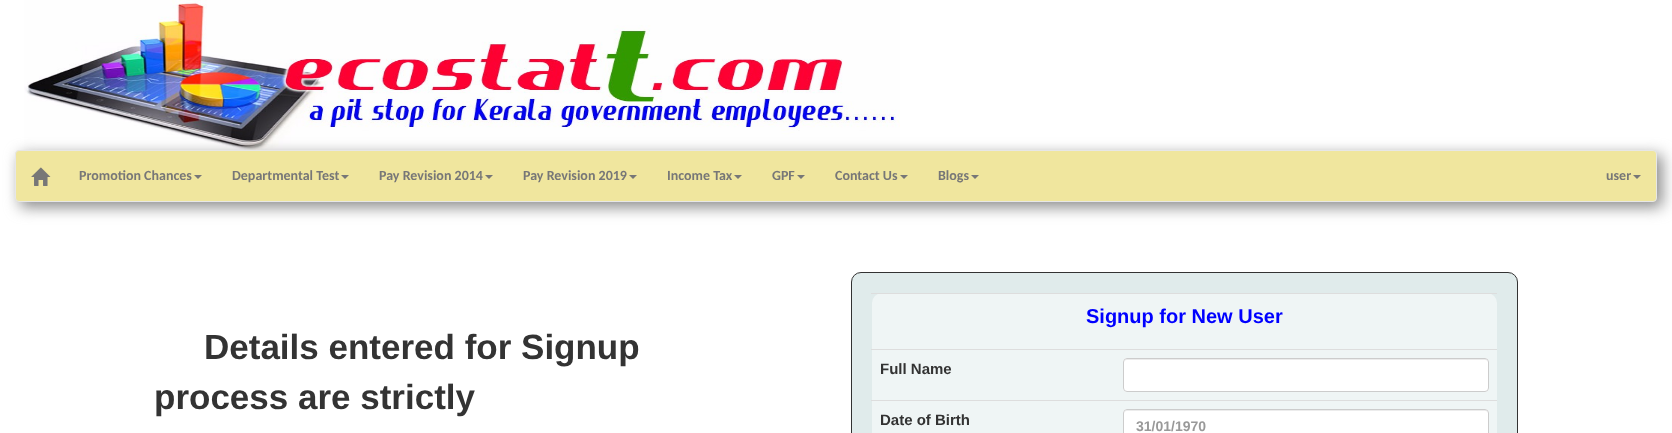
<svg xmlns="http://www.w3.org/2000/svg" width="1672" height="433">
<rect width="100%" height="100%" fill="#fff"/>
<image x="24" y="0" width="876" height="150" href="media/1.png"/>
<rect x="20" y="155" width="1642" height="52" fill="#888" filter="blur(7.5px)"/>
<rect x="15.5" y="150.5" width="1641" height="51" rx="3.5" fill="#f0e69e" stroke="#e7e7e7"/>
<image x="31" y="167" width="20" height="19" href="media/2.png"/>
<text x="79" y="180" style="font-family:Carlito;font-size:14px;font-weight:bold;fill:#777">Promotion Chances</text>
<path d="M194 175h8l-4 4z" fill="#777"/>
<text x="232" y="180" style="font-family:Carlito;font-size:14px;font-weight:bold;fill:#777">Departmental Test</text>
<path d="M341 175h8l-4 4z" fill="#777"/>
<text x="379" y="180" style="font-family:Carlito;font-size:14px;font-weight:bold;fill:#777">Pay Revision 2014</text>
<path d="M485 175h8l-4 4z" fill="#777"/>
<text x="523" y="180" style="font-family:Carlito;font-size:14px;font-weight:bold;fill:#777">Pay Revision 2019</text>
<path d="M629 175h8l-4 4z" fill="#777"/>
<text x="667" y="180" style="font-family:Carlito;font-size:14px;font-weight:bold;fill:#777">Income Tax</text>
<path d="M734 175h8l-4 4z" fill="#777"/>
<text x="772" y="180" style="font-family:Carlito;font-size:14px;font-weight:bold;fill:#777">GPF</text>
<path d="M797 175h8l-4 4z" fill="#777"/>
<text x="835" y="180" style="font-family:Carlito;font-size:14px;font-weight:bold;fill:#777">Contact Us</text>
<path d="M900 175h8l-4 4z" fill="#777"/>
<text x="938" y="180" style="font-family:Carlito;font-size:14px;font-weight:bold;fill:#777">Blogs</text>
<path d="M971 175h8l-4 4z" fill="#777"/>
<text x="1606" y="180" style="font-family:Carlito;font-size:14px;font-weight:bold;fill:#777">user</text>
<path d="M1633 175h8l-4 4z" fill="#777"/>
<text x="204" y="359" style="font-family:Liberation Sans;font-size:35px;font-weight:bold;fill:#333">Details entered for Signup</text>
<text x="154" y="409" style="font-family:Liberation Sans;font-size:35px;font-weight:bold;fill:#333">process are strictly</text>
<rect x="851.5" y="272.5" width="666" height="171" rx="9.5" fill="#e0ebeb" stroke="#333"/>
<rect x="872" y="293" width="625" height="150" rx="10" fill="#eff5f5"/>
<rect x="871" y="293" width="626" height="1" fill="#ddd"/>
<text x="1086" y="323" style="font-family:Liberation Sans;font-size:20px;font-weight:bold;fill:#00f">Signup for New User</text>
<rect x="871" y="349" width="626" height="1" fill="#ddd"/>
<rect x="1123" y="358" width="366" height="34" rx="4" fill="#fff"/>
<path d="M1127 360h358c2 0 3 1 3 3c0-2-1-4-3-4h-358l-2 1l-1 3c0-2 1-3 3-3z" fill="#ececec"/>
<rect x="1123.5" y="358.5" width="365" height="33" rx="3.5" fill="none" stroke="#ccc"/>
<text x="880" y="374" style="font-family:Liberation Sans;font-size:15px;font-weight:bold;fill:#333">Full Name</text>
<text x="880" y="425" style="font-family:Liberation Sans;font-size:15px;font-weight:bold;fill:#333">Date of Birth</text>
<rect x="871" y="400" width="626" height="1" fill="#ddd"/>
<rect x="1123" y="409" width="366" height="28" rx="4" fill="#fff"/>
<path d="M1127 411h358c2 0 3 1 3 3c0-2-1-4-3-4h-358l-2 1l-1 3c0-2 1-3 3-3z" fill="#ececec"/>
<rect x="1123.5" y="409.5" width="365" height="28" rx="3.5" fill="none" stroke="#ccc"/>
<text x="1136" y="431" style="font-family:Liberation Sans;font-size:14px;font-weight:bold;fill:#999">31/01/1970</text>
</svg>
